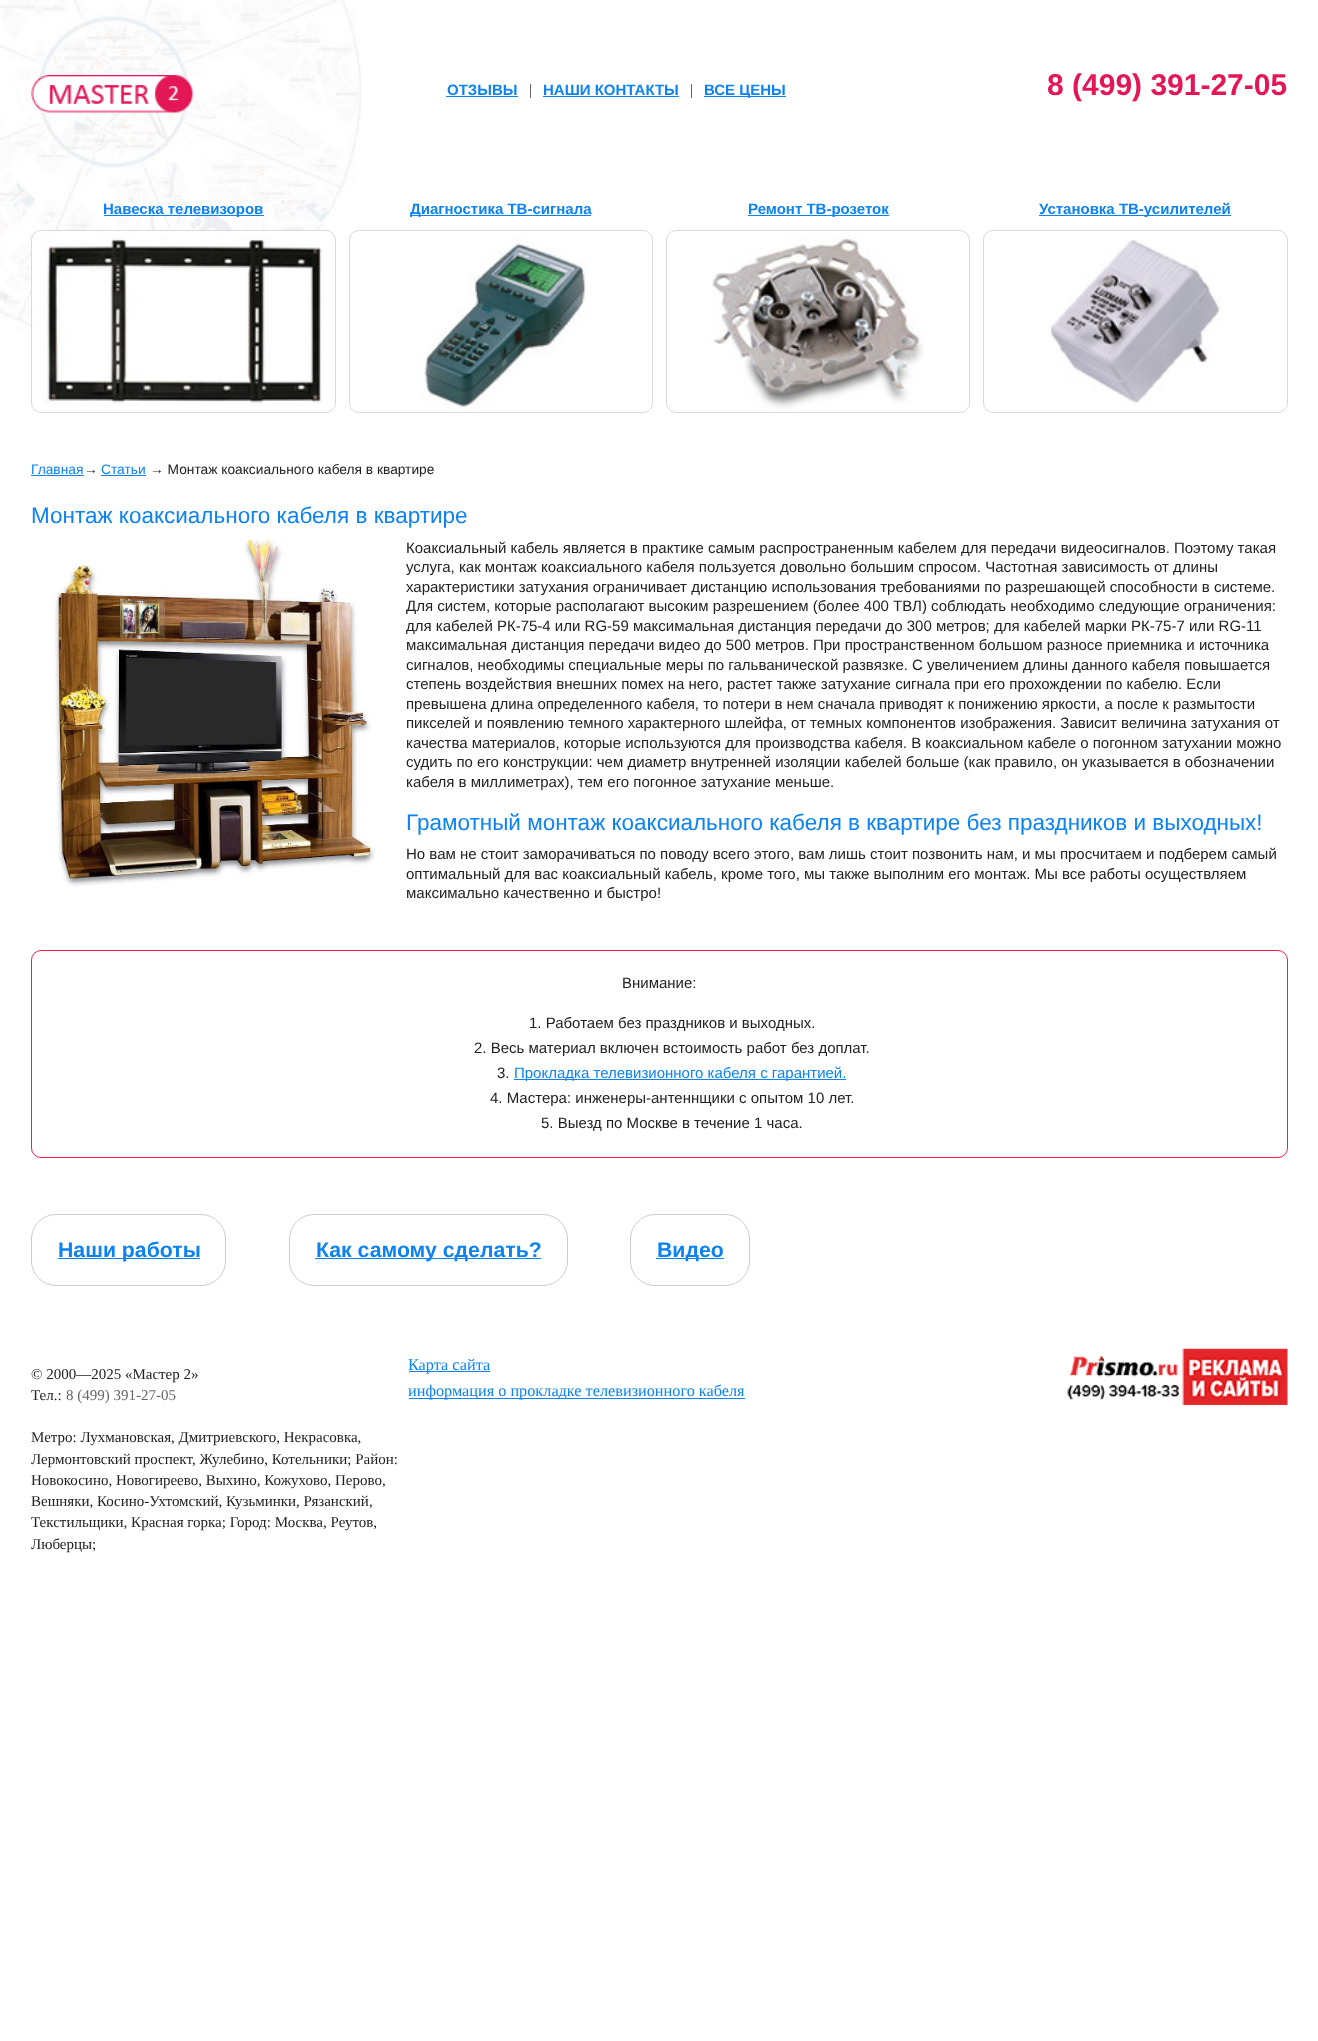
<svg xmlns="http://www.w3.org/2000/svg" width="1318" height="2041">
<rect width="100%" height="100%" fill="#fff"/>
<image x="0" y="0" width="362" height="340" href="media/1.png"/>
<image x="31" y="75" width="162" height="38" href="media/2.png"/>
<text x="447" y="95" style="font-family:Liberation Sans;font-size:15px;font-weight:bold;fill:#0b83f4">ОТЗЫВЫ</text>
<rect x="446" y="96" width="72" height="1" fill="#0b83f4"/>
<rect x="530" y="84" width="1" height="14" fill="#696868"/>
<text x="543" y="95" style="font-family:Liberation Sans;font-size:15px;font-weight:bold;fill:#0b83f4">НАШИ КОНТАКТЫ</text>
<rect x="543" y="96" width="136" height="1" fill="#0b83f4"/>
<rect x="691" y="84" width="1" height="14" fill="#696868"/>
<rect x="704" y="96" width="82" height="1" fill="#0b83f4"/>
<text x="704" y="95" style="font-family:Liberation Sans;font-size:15px;font-weight:bold;fill:#0b83f4">ВСЕ ЦЕНЫ</text>
<text x="1047" y="95" style="font-family:Liberation Sans;font-size:30px;font-weight:bold;fill:#e31756">8 (499) 391-27-05</text>
<rect x="104" y="215" width="160" height="1" fill="#0b83f4"/>
<text x="103" y="214" style="font-family:Liberation Sans;font-size:15px;font-weight:bold;fill:#0b83f4">Навеска телевизоров</text>
<image x="32" y="230" width="291" height="174" href="media/3.png"/>
<rect x="31.5" y="230.5" width="304" height="182" rx="9.5" fill="none" stroke="#dadada"/>
<rect x="410" y="215" width="181" height="1" fill="#0b83f4"/>
<text x="410" y="214" style="font-family:Liberation Sans;font-size:15px;font-weight:bold;fill:#0b83f4">Диагностика ТВ-сигнала</text>
<image x="422" y="238" width="166" height="173" href="media/4.png"/>
<rect x="349.5" y="230.5" width="303" height="182" rx="9.5" fill="none" stroke="#dadada"/>
<rect x="748" y="215" width="141" height="1" fill="#0b83f4"/>
<text x="748" y="214" style="font-family:Liberation Sans;font-size:15px;font-weight:bold;fill:#0b83f4">Ремонт ТВ-розеток</text>
<image x="711" y="236" width="213" height="173" href="media/5.png"/>
<rect x="666.5" y="230.5" width="303" height="182" rx="9.5" fill="none" stroke="#dadada"/>
<rect x="1039" y="215" width="192" height="1" fill="#0b83f4"/>
<text x="1039" y="214" style="font-family:Liberation Sans;font-size:15px;font-weight:bold;fill:#0b83f4">Установка ТВ-усилителей</text>
<image x="1047" y="239" width="176" height="164" href="media/6.png"/>
<rect x="983.5" y="230.5" width="304" height="182" rx="9.5" fill="none" stroke="#dadada"/>
<text x="31" y="474" style="font-family:Liberation Sans;font-size:13.75px;fill:#0b83f4">Главная</text>
<rect x="31" y="475" width="53" height="1" fill="#0b83f4"/>
<text x="84" y="474" style="font-family:Liberation Sans;font-size:13.75px;fill:#222">→</text>
<text x="101" y="474" style="font-family:Liberation Sans;font-size:13.75px;fill:#0b83f4">Статьи</text>
<rect x="101" y="475" width="45" height="1" fill="#0b83f4"/>
<text x="150" y="474" style="font-family:Liberation Sans;font-size:13.75px;fill:#222">→ Монтаж коаксиального кабеля в квартире</text>
<text x="31" y="523" style="font-family:Liberation Sans;font-size:22.5px;fill:#0b83f4">Монтаж коаксиального кабеля в квартире</text>
<image x="54" y="538" width="321" height="349" href="media/7.png"/>
<text x="406" y="553" style="font-family:Liberation Sans;font-size:15px;fill:#222">Коаксиальный кабель является в практике самым распространенным кабелем для передачи видеосигналов. Поэтому такая</text>
<text x="406" y="572" style="font-family:Liberation Sans;font-size:15px;fill:#222">услуга, как монтаж коаксиального кабеля пользуется довольно большим спросом. Частотная зависимость от длины</text>
<text x="406" y="592" style="font-family:Liberation Sans;font-size:15px;fill:#222">характеристики затухания ограничивает дистанцию использования требованиями по разрешающей способности в системе.</text>
<text x="406" y="611" style="font-family:Liberation Sans;font-size:15px;fill:#222">Для систем, которые располагают высоким разрешением (более 400 ТВЛ) соблюдать необходимо следующие ограничения:</text>
<text x="406" y="631" style="font-family:Liberation Sans;font-size:15px;fill:#222">для кабелей РК-75-4 или RG-59 максимальная дистанция передачи до 300 метров; для кабелей марки РК-75-7 или RG-11</text>
<text x="406" y="650" style="font-family:Liberation Sans;font-size:15px;fill:#222">максимальная дистанция передачи видео до 500 метров. При пространственном большом разносе приемника и источника</text>
<text x="406" y="670" style="font-family:Liberation Sans;font-size:15px;fill:#222">сигналов, необходимы специальные меры по гальванической развязке. С увеличением длины данного кабеля повышается</text>
<text x="406" y="689" style="font-family:Liberation Sans;font-size:15px;fill:#222">степень воздействия внешних помех на него, растет также затухание сигнала при его прохождении по кабелю. Если</text>
<text x="406" y="709" style="font-family:Liberation Sans;font-size:15px;fill:#222">превышена длина определенного кабеля, то потери в нем сначала приводят к понижению яркости, а после к размытости</text>
<text x="406" y="728" style="font-family:Liberation Sans;font-size:15px;fill:#222">пикселей и появлению темного характерного шлейфа, от темных компонентов изображения. Зависит величина затухания от</text>
<text x="406" y="748" style="font-family:Liberation Sans;font-size:15px;fill:#222">качества материалов, которые используются для производства кабеля. В коаксиальном кабеле о погонном затухании можно</text>
<text x="406" y="767" style="font-family:Liberation Sans;font-size:15px;fill:#222">судить по его конструкции: чем диаметр внутренней изоляции кабелей больше (как правило, он указывается в обозначении</text>
<text x="406" y="787" style="font-family:Liberation Sans;font-size:15px;fill:#222">кабеля в миллиметрах), тем его погонное затухание меньше.</text>
<text x="406" y="830" style="font-family:Liberation Sans;font-size:22.5px;fill:#0b83f4">Грамотный монтаж коаксиального кабеля в квартире без праздников и выходных!</text>
<text x="406" y="859" style="font-family:Liberation Sans;font-size:15px;fill:#222">Но вам не стоит заморачиваться по поводу всего этого, вам лишь стоит позвонить нам, и мы просчитаем и подберем самый</text>
<text x="406" y="879" style="font-family:Liberation Sans;font-size:15px;fill:#222">оптимальный для вас коаксиальный кабель, кроме того, мы также выполним его монтаж. Мы все работы осуществляем</text>
<text x="406" y="898" style="font-family:Liberation Sans;font-size:15px;fill:#222">максимально качественно и быстро!</text>
<rect x="31.5" y="950.5" width="1256" height="207" rx="9.5" fill="none" stroke="#fa184d"/>
<text x="622" y="988" style="font-family:Liberation Sans;font-size:15px;fill:#222">Внимание:</text>
<text x="529" y="1028" style="font-family:Liberation Sans;font-size:15px;fill:#222">1. Работаем без праздников и выходных.</text>
<text x="474" y="1053" style="font-family:Liberation Sans;font-size:15px;fill:#222">2. Весь материал включен встоимость работ без доплат.</text>
<text x="497" y="1078" style="font-family:Liberation Sans;font-size:15px;fill:#222">3.</text>
<rect x="514" y="1079" width="332" height="1" fill="#0b83f4"/>
<text x="514" y="1078" style="font-family:Liberation Sans;font-size:15px;fill:#0b83f4">Прокладка телевизионного кабеля с гарантией.</text>
<text x="490" y="1103" style="font-family:Liberation Sans;font-size:15px;fill:#222">4. Мастера: инженеры-антеннщики с опытом 10 лет.</text>
<text x="541" y="1128" style="font-family:Liberation Sans;font-size:15px;fill:#222">5. Выезд по Москве в течение 1 часа.</text>
<rect x="31.5" y="1214.5" width="194" height="71" rx="24.5" fill="none" stroke="#ccc"/>
<rect x="58" y="1258" width="142" height="1" fill="#0b83f4"/>
<text x="58" y="1257" style="font-family:Liberation Sans;font-size:21.25px;font-weight:bold;fill:#0b83f4">Наши работы</text>
<rect x="289.5" y="1214.5" width="278" height="71" rx="24.5" fill="none" stroke="#ccc"/>
<rect x="315" y="1258" width="226" height="1" fill="#0b83f4"/>
<text x="316" y="1257" style="font-family:Liberation Sans;font-size:21.25px;font-weight:bold;fill:#0b83f4">Как самому сделать?</text>
<rect x="630.5" y="1214.5" width="119" height="71" rx="24.5" fill="none" stroke="#ccc"/>
<rect x="656" y="1258" width="68" height="1" fill="#0b83f4"/>
<text x="657" y="1257" style="font-family:Liberation Sans;font-size:21.25px;font-weight:bold;fill:#0b83f4">Видео</text>
<text x="31" y="1379" style="font-family:Liberation Serif;font-size:15px;fill:#222">© 2000—2025 «Мастер 2»</text>
<text x="31" y="1400" style="font-family:Liberation Serif;font-size:15px;fill:#222">Тел.:</text>
<text x="66" y="1400" style="font-family:Liberation Serif;font-size:15px;fill:#666">8 (499) 391-27-05</text>
<text x="31" y="1442" style="font-family:Liberation Serif;font-size:15px;fill:#222">Метро: Лухмановская, Дмитриевского, Некрасовка,</text>
<text x="31" y="1464" style="font-family:Liberation Serif;font-size:15px;fill:#222">Лермонтовский проспект, Жулебино, Котельники; Район:</text>
<text x="31" y="1485" style="font-family:Liberation Serif;font-size:15px;fill:#222">Новокосино, Новогиреево, Выхино, Кожухово, Перово,</text>
<text x="31" y="1506" style="font-family:Liberation Serif;font-size:15px;fill:#222">Вешняки, Косино-Ухтомский, Кузьминки, Рязанский,</text>
<text x="31" y="1527" style="font-family:Liberation Serif;font-size:15px;fill:#222">Текстильщики, Красная горка; Город: Москва, Реутов,</text>
<text x="31" y="1549" style="font-family:Liberation Serif;font-size:15px;fill:#222">Люберцы;</text>
<rect x="409" y="1371" width="81" height="1" fill="#0b83f4"/>
<text x="408" y="1370" style="font-family:Liberation Serif;font-size:16.25px;fill:#0b83f4">Карта сайта</text>
<rect x="409" y="1398" width="336" height="1" fill="#0b83f4"/>
<text x="408" y="1396" style="font-family:Liberation Serif;font-size:16.25px;fill:#0b83f4">информация о прокладке телевизионного кабеля</text>
<image x="1067" y="1348" width="221" height="57" href="media/8.png"/>
</svg>
